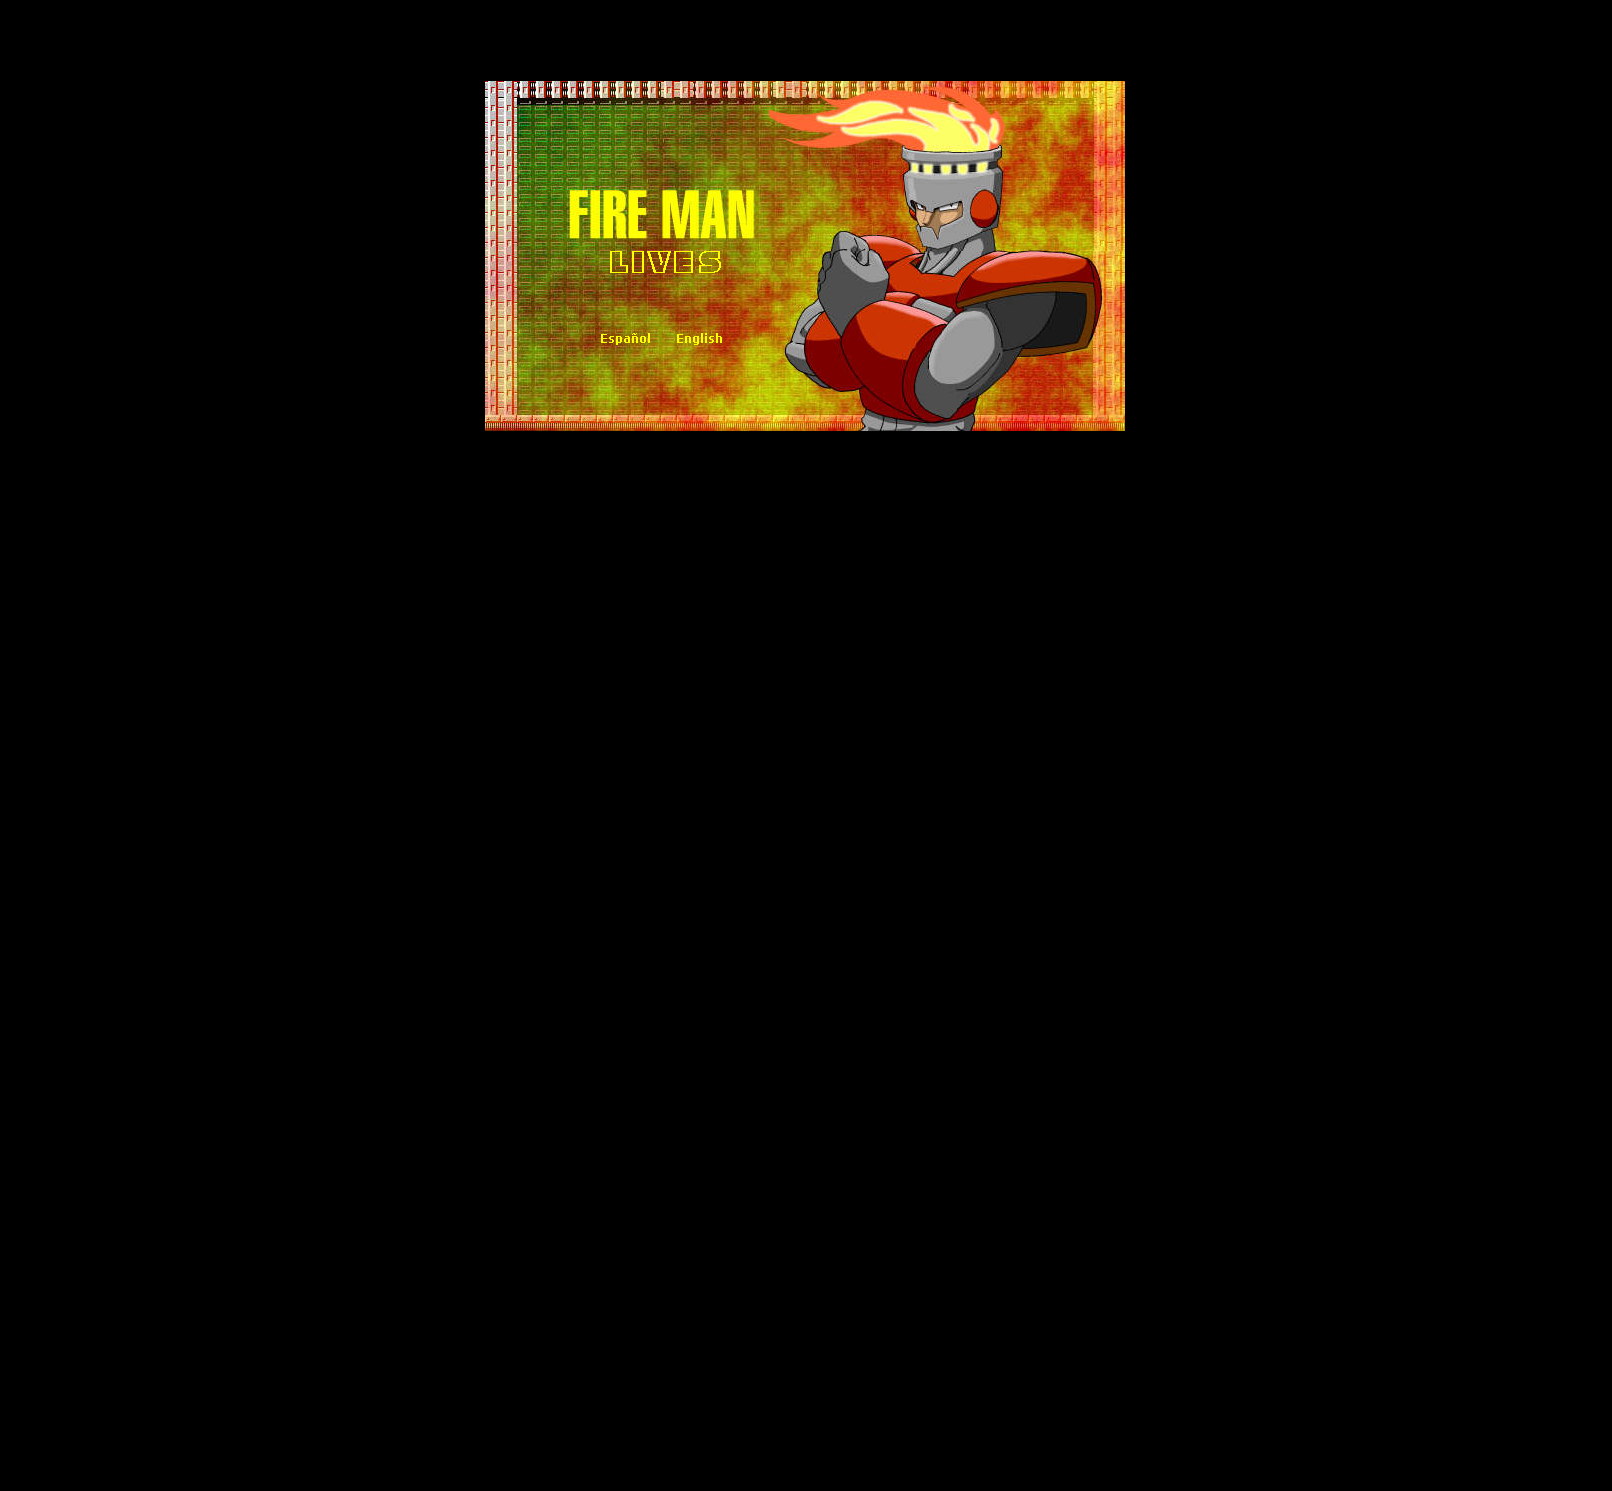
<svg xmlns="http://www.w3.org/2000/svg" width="1612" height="1491">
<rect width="100%" height="100%" fill="#000"/>
<image x="485" y="81" width="320" height="170" href="media/1.png"/>
<image x="805" y="81" width="320" height="170" href="media/2.png"/>
<image x="485" y="251" width="125" height="22" href="media/3.png"/>
<image x="610" y="251" width="112" height="22" href="media/4.png"/>
<image x="722" y="251" width="403" height="22" href="media/5.png"/>
<image x="485" y="273" width="320" height="60" href="media/6.png"/>
<image x="805" y="273" width="320" height="60" href="media/7.png"/>
<image x="485" y="333" width="116" height="12" href="media/8.png"/>
<image x="601" y="333" width="49" height="12" href="media/9.png"/>
<image x="650" y="333" width="27" height="12" href="media/10.png"/>
<image x="677" y="333" width="45" height="12" href="media/11.png"/>
<image x="722" y="333" width="403" height="12" href="media/12.png"/>
<image x="485" y="345" width="320" height="86" href="media/13.png"/>
<image x="805" y="345" width="320" height="86" href="media/14.png"/>
</svg>
